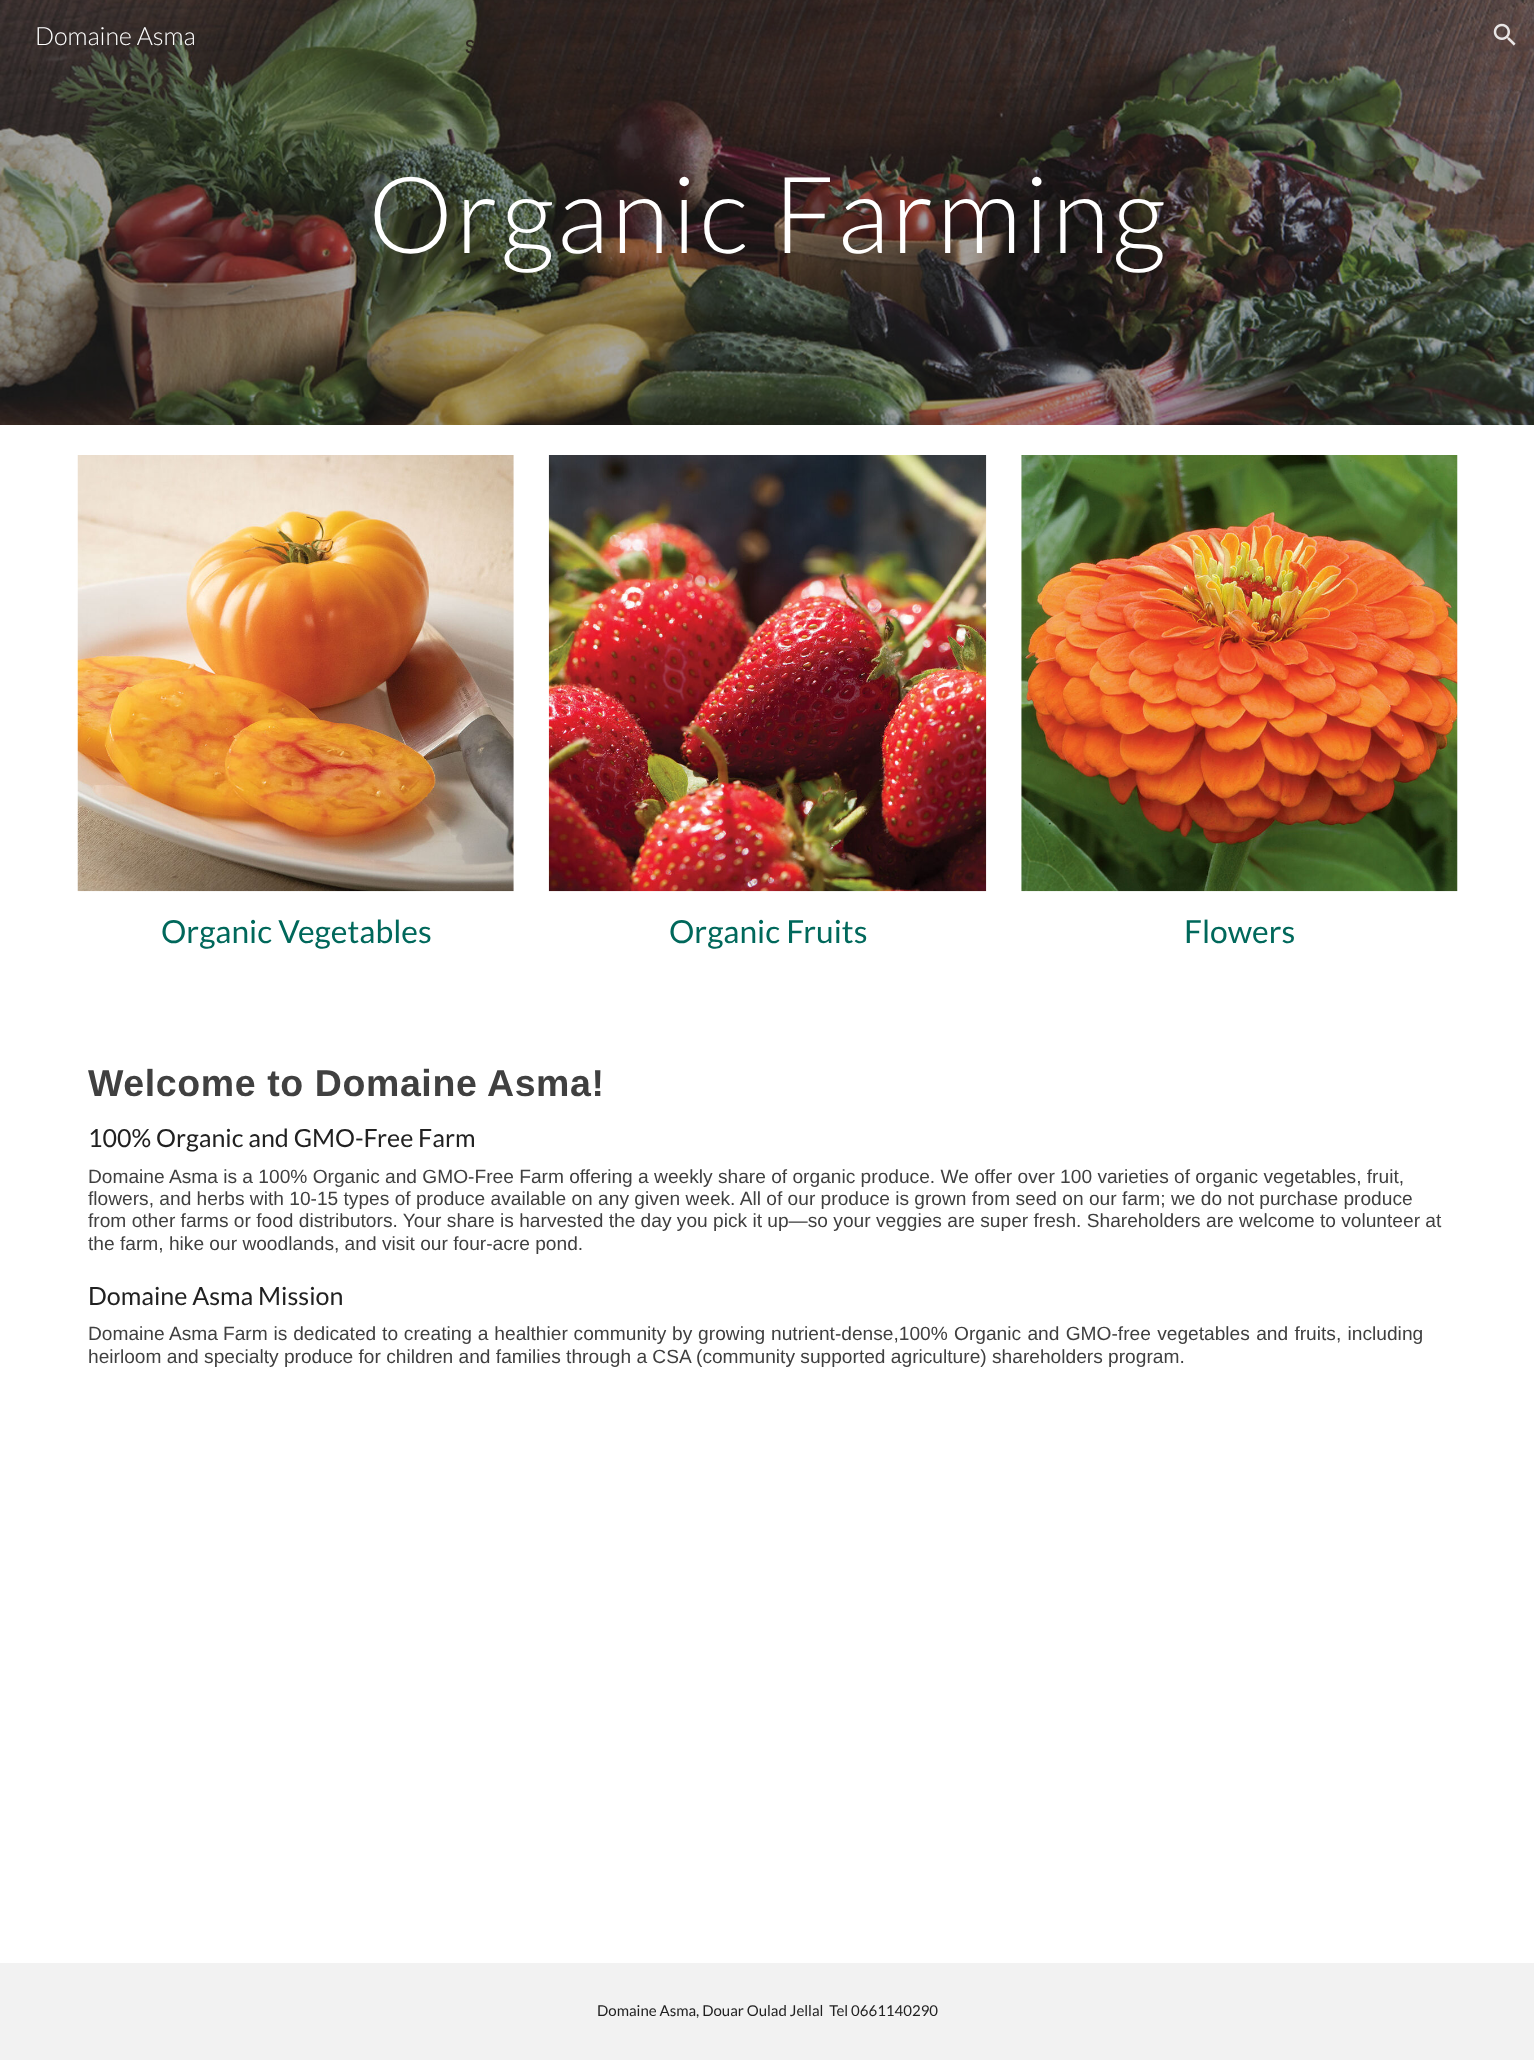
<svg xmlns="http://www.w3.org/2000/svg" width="1534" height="2060">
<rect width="100%" height="100%" fill="#fff"/>
<image x="0" y="0" width="1534" height="425" href="media/2.png"/>
<text x="35" y="45" style="font-family:Lato;font-size:25px;font-weight:300;fill:#fff">Domaine Asma</text>
<image x="1493" y="23" width="23" height="23" href="media/1.png"/>
<text x="368" y="253" style="font-family:Lato;font-size:106.75px;font-weight:300;letter-spacing:2.5px;fill:#fff">Organic Farming</text>
<image x="77" y="455" width="437" height="437" href="media/3.png"/>
<text x="161" y="943" style="font-family:Lato;font-size:31.75px;fill:#00685b">Organic Vegetables</text>
<image x="548" y="455" width="439" height="437" href="media/4.png"/>
<text x="669" y="943" style="font-family:Lato;font-size:31.75px;fill:#00685b">Organic Fruits</text>
<image x="1021" y="455" width="437" height="437" href="media/5.png"/>
<text x="1184" y="943" style="font-family:Lato;font-size:31.75px;fill:#00685b">Flowers</text>
<text x="88" y="1096" style="font-family:Liberation Sans;font-size:37.5px;font-weight:bold;letter-spacing:0.6px;fill:#404040">Welcome to Domaine Asma!</text>
<text x="88" y="1147" style="font-family:Lato;font-size:25px;fill:#212121">100% Organic and GMO-Free Farm</text>
<text x="88" y="1183" style="font-family:Liberation Sans;font-size:19.17px;fill:#404040">Domaine Asma is a 100% Organic and GMO-Free Farm offering a weekly share of organic produce. We offer over 100 varieties of organic vegetables, fruit,</text>
<text x="88" y="1205" style="font-family:Liberation Sans;font-size:19.17px;fill:#404040">flowers, and herbs with 10-15 types of produce available on any given week. All of our produce is grown from seed on our farm; we do not purchase produce</text>
<text x="88" y="1227" style="font-family:Liberation Sans;font-size:19.17px;fill:#404040">from other farms or food distributors. Your share is harvested the day you pick it up—so your veggies are super fresh. Shareholders are welcome to volunteer at</text>
<text x="88" y="1250" style="font-family:Liberation Sans;font-size:19.17px;fill:#404040">the farm, hike our woodlands, and visit our four-acre pond.</text>
<text x="88" y="1305" style="font-family:Lato;font-size:25px;fill:#212121">Domaine Asma Mission</text>
<text x="88" y="1340" style="font-family:Liberation Sans;font-size:19.17px;fill:#404040">Domaine Asma</text>
<text x="223" y="1340" word-spacing="0.5" style="font-family:Liberation Sans;font-size:19.17px;fill:#404040">Farm is dedicated to creating a healthier community by growing nutrient-dense,100%</text>
<text x="954" y="1340" word-spacing="1" style="font-family:Liberation Sans;font-size:19.17px;fill:#404040">Organic and GMO-free vegetables and fruits, including</text>
<text x="88" y="1363" style="font-family:Liberation Sans;font-size:19.17px;fill:#404040">heirloom and specialty produce for children and families through a CSA (community supported agriculture) shareholders program.</text>
<rect y="1963" width="1534" height="97" fill="#f2f2f2"/>
<text x="597" y="2016" style="font-family:Lato;font-size:15px;fill:#212121" xml:space="preserve">Domaine Asma, Douar Oulad Jellal  Tel 0661140290</text>
<text x="465" y="53" style="font-family:Google Sans;font-size:18px;font-weight:500;fill:#2f2721">S</text>
</svg>
